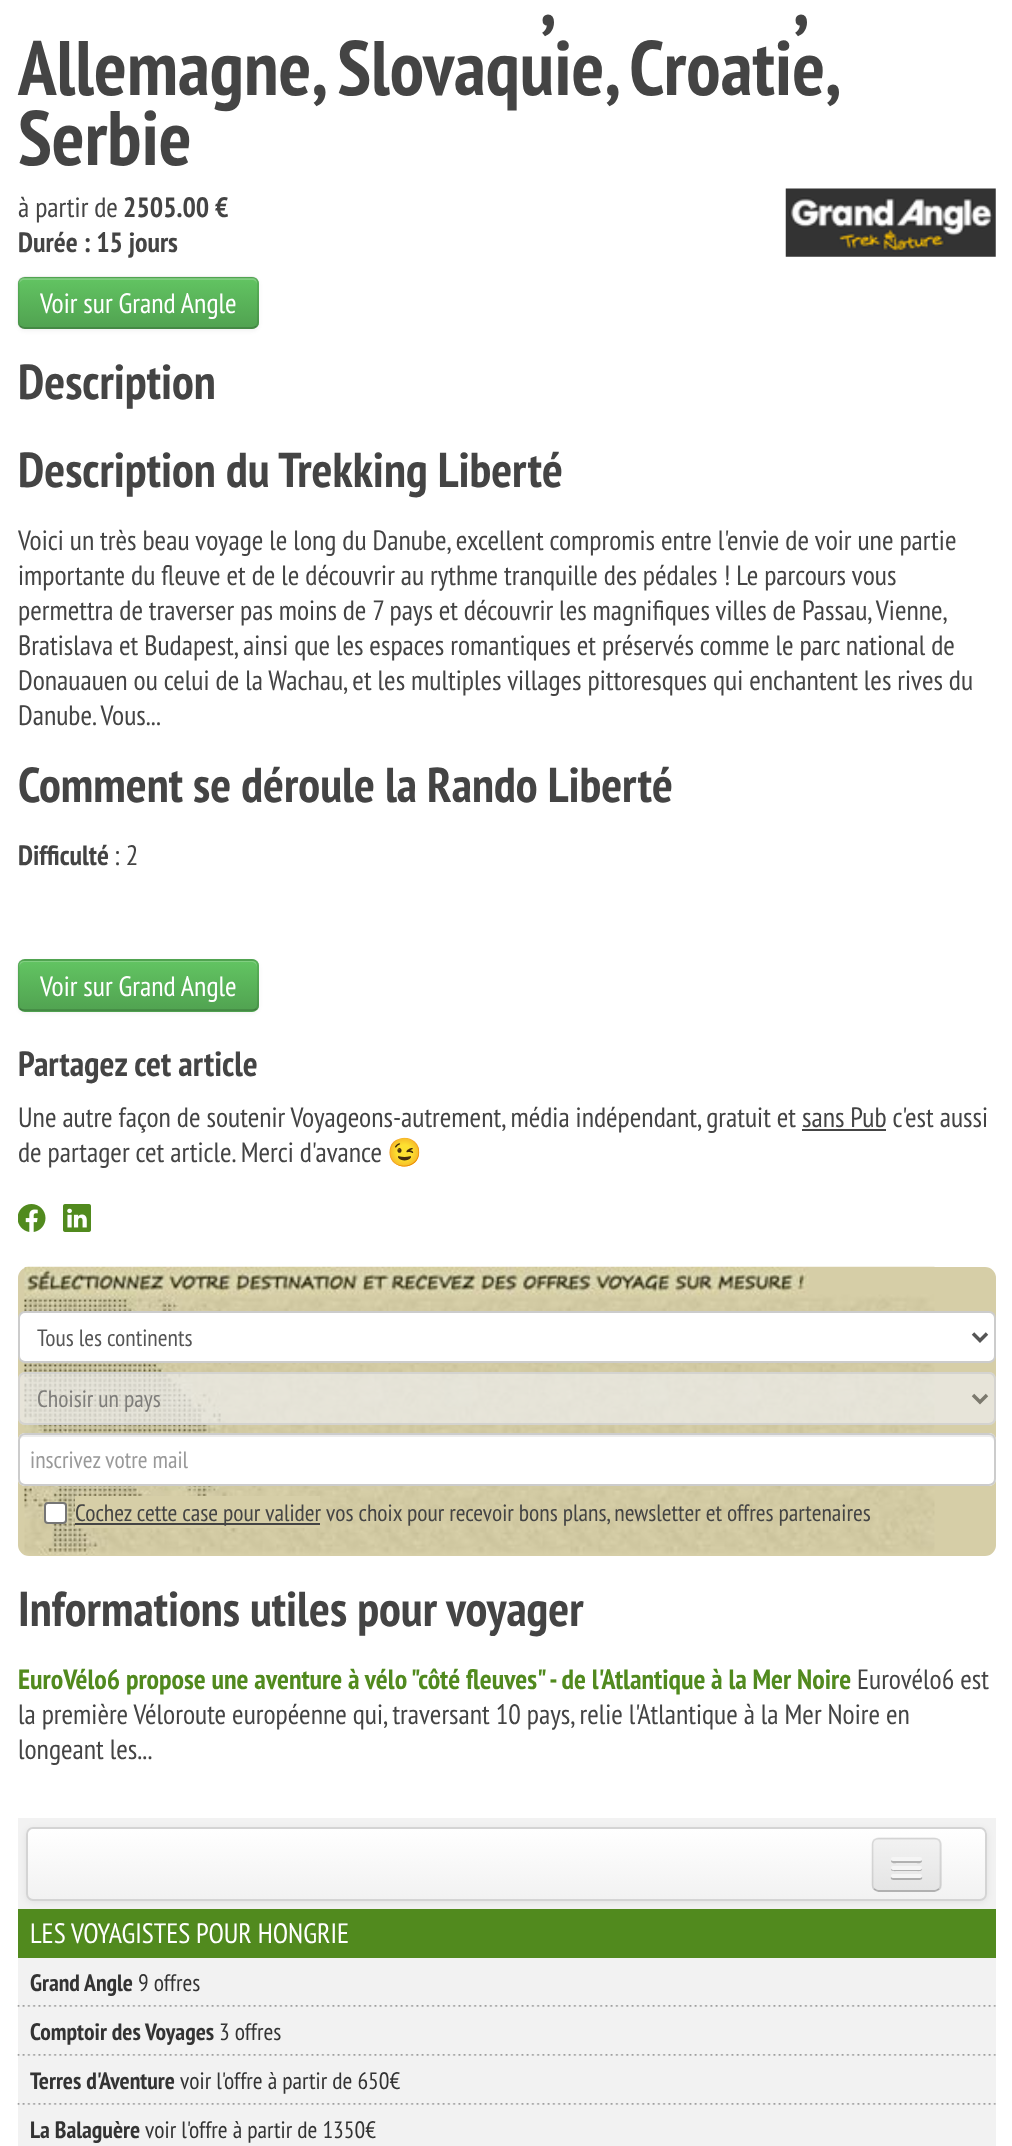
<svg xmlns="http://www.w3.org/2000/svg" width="1012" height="2146">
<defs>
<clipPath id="clip1"><rect x="18" y="277" width="241" height="52" rx="7"/></clipPath>
<linearGradient id="g1" gradientUnits="userSpaceOnUse" x1="138" y1="278" x2="138" y2="327"><stop offset="0" stop-color="#62c462"/><stop offset="1" stop-color="#51a351"/></linearGradient>
<clipPath id="clip2"><rect x="18" y="959" width="241" height="53" rx="7"/></clipPath>
<linearGradient id="g2" gradientUnits="userSpaceOnUse" x1="138" y1="961" x2="138" y2="1010"><stop offset="0" stop-color="#62c462"/><stop offset="1" stop-color="#51a351"/></linearGradient>
<clipPath id="clip3"><rect x="26" y="1827" width="961" height="74" rx="7"/></clipPath>
<linearGradient id="g3" gradientUnits="userSpaceOnUse" x1="507" y1="1829" x2="507" y2="1899"><stop offset="0" stop-color="#fff"/><stop offset="1" stop-color="#f2f2f2"/></linearGradient>
<clipPath id="clip4"><rect x="872" y="1838" width="70" height="54" rx="7"/></clipPath>
<linearGradient id="g4" gradientUnits="userSpaceOnUse" x1="907" y1="1839" x2="907" y2="1890"><stop offset="0" stop-color="#f2f2f2"/><stop offset="1" stop-color="#e5e5e5"/></linearGradient>
</defs>
<rect width="100%" height="100%" fill="#fff"/>
<text x="540" y="25" word-spacing="-2" style="font-family:PT Sans Narrow;font-size:77px;font-weight:bold;fill:#444">,</text>
<text x="793" y="25" word-spacing="-2" style="font-family:PT Sans Narrow;font-size:77px;font-weight:bold;fill:#444">,</text>
<text x="18" y="95" word-spacing="-2" style="font-family:PT Sans Narrow;font-size:77px;font-weight:bold;fill:#444">Allemagne, Slovaquie, Croatie,</text>
<text x="18" y="165" style="font-family:PT Sans Narrow;font-size:77px;font-weight:bold;fill:#444">Serbie</text>
<text x="18" y="217" style="font-family:PT Sans Narrow;font-size:28px;fill:#444">à partir de</text>
<text x="123" y="217" style="font-family:PT Sans Narrow;font-size:28px;font-weight:bold;fill:#444">2505.00 €</text>
<text x="18" y="252" style="font-family:PT Sans Narrow;font-size:28px;font-weight:bold;fill:#444">Durée : 15 jours</text>
<image x="785" y="188" width="211" height="69" href="media/1.png"/>
<rect x="18" y="278" width="241" height="53" rx="7" fill="#0000000d" filter="blur(2px)"/>
<rect x="18" y="277" width="241" height="52" rx="7" fill="#5bb75b"/>
<g clip-path="url(#clip1)">
<rect x="18" y="278" width="241" height="49" fill="url(#g1)"/>
</g>
<path d="M24 280h228c3 0 5 2 5 5c0-3 0-6-4-7h-230c-4 1-4 4-4 7c0-3 3-5 5-5z" fill="#ffffff33"/>
<path d="M256.5 326.5c-1.5 1-3 1.5-4.5 1.5h-227.5c-1.5 0-3-.5-4.5-1.5" fill="none" stroke="#00000040" stroke-width="1.8"/>
<path d="M20 326.5c-1-1.5-1.5-3-1.5-4.5v-38.5c0-1.5 .5-3 1.5-4.5c1.5-1 3-1.5 4.5-1.5h227.5c1.5 0 3 .5 4.5 1.5c1 1.5 1.5 3 1.5 4.5v38.5c0 1.5-.5 3-1.5 4.5" fill="none" stroke="#0000001a" stroke-width="1.8"/>
<text x="40" y="313" style="font-family:PT Sans Narrow;font-size:28px;fill:#fff">Voir sur Grand Angle</text>
<text x="18" y="399" style="font-family:PT Sans Narrow;font-size:49px;font-weight:bold;fill:#444">Description</text>
<text x="18" y="487" style="font-family:PT Sans Narrow;font-size:49px;font-weight:bold;fill:#444">Description du Trekking Liberté</text>
<text x="18" y="550" style="font-family:PT Sans Narrow;font-size:28px;fill:#444">Voici un très beau voyage le long du Danube, excellent compromis entre l'envie de voir une partie</text>
<text x="18" y="585" style="font-family:PT Sans Narrow;font-size:28px;fill:#444">importante du fleuve et de le découvrir au rythme tranquille des pédales ! Le parcours vous</text>
<text x="18" y="620" word-spacing="-0.1" style="font-family:PT Sans Narrow;font-size:28px;fill:#444">permettra de traverser pas moins de 7 pays et découvrir les magnifiques villes de Passau, Vienne,</text>
<text x="18" y="655" style="font-family:PT Sans Narrow;font-size:28px;fill:#444">Bratislava et Budapest, ainsi que les espaces romantiques et préservés comme le parc national de</text>
<text x="18" y="690" style="font-family:PT Sans Narrow;font-size:28px;fill:#444">Donauauen ou celui de la Wachau, et les multiples villages pittoresques qui enchantent les rives du</text>
<text x="18" y="725" style="font-family:PT Sans Narrow;font-size:28px;fill:#444">Danube. Vous...</text>
<text x="18" y="802" style="font-family:PT Sans Narrow;font-size:49px;font-weight:bold;fill:#444">Comment se déroule la Rando Liberté</text>
<text x="18" y="865" style="font-family:PT Sans Narrow;font-size:28px;font-weight:bold;fill:#444">Difficulté</text>
<text x="114" y="865" style="font-family:PT Sans Narrow;font-size:28px;fill:#444">: 2</text>
<rect x="18" y="961" width="241" height="52" rx="7" fill="#0000000d" filter="blur(2px)"/>
<rect x="18" y="959" width="241" height="53" rx="7" fill="#5bb75b"/>
<g clip-path="url(#clip2)">
<rect x="18" y="961" width="241" height="49" fill="url(#g2)"/>
</g>
<path d="M24 962h228c3 0 5 3 5 6c0-3 0-6-4-7h-230c-4 1-4 4-4 7c0-3 3-6 5-6z" fill="#ffffff33"/>
<path d="M256.5 1009c-1.5 1-3 1.5-4.5 1.5h-227.5c-1.5 0-3-.5-4.5-1.5" fill="none" stroke="#00000040" stroke-width="1.8"/>
<path d="M20 1009c-1-1.5-1.5-3-1.5-4.5v-38.5c0-1.5 .5-3 1.5-4.5c1.5-1 3-1.5 4.5-1.5h227.5c1.5 0 3 .5 4.5 1.5c1 1.5 1.5 3 1.5 4.5v38.5c0 1.5-.5 3-1.5 4.5" fill="none" stroke="#0000001a" stroke-width="1.8"/>
<text x="40" y="996" style="font-family:PT Sans Narrow;font-size:28px;fill:#fff">Voir sur Grand Angle</text>
<text x="18" y="1076" style="font-family:PT Sans Narrow;font-size:35px;font-weight:bold;fill:#444">Partagez cet article</text>
<text x="18" y="1127" style="font-family:PT Sans Narrow;font-size:28px;fill:#444">Une autre façon de soutenir Voyageons-autrement, média indépendant, gratuit et sans Pub c'est aussi</text>
<rect x="802" y="1129" width="84" height="2" fill="#444"/>
<text x="18" y="1162" style="font-family:PT Sans Narrow;font-size:28px;fill:#444">de partager cet article. Merci d'avance</text>
<text x="387" y="1162" style="font-family:Noto Color Emoji;font-size:28px;fill:#444">😉</text>
<image x="18" y="1204" width="28" height="28" href="media/2.png"/>
<image x="63" y="1204" width="28" height="28" href="media/3.png"/>
<rect x="18" y="1267" width="978" height="289" rx="11" fill="#d6cea7"/>
<image x="24" y="1266" width="911" height="289" href="media/4.png"/>
<rect x="19" y="1312" width="976" height="50" rx="6" fill="#fff" stroke="#ccc" stroke-width="2"/>
<path d="M973 1333.5l7 7l7-7" fill="none" stroke="#555" stroke-width="3.5"/>
<text x="37" y="1346" style="font-family:PT Sans Narrow;font-size:23.7px;fill:#555">Tous les continents</text>
<rect x="18" y="1372" width="978" height="53" rx="7" fill="#eeeeeeb3"/>
<rect x="19" y="1373" width="976" height="51" rx="6" fill="none" stroke="#ccccccb3" stroke-width="2"/>
<path d="M973 1395l7 7l7-7" fill="none" stroke="#7c796e" stroke-width="3.5"/>
<text x="37" y="1407" style="font-family:PT Sans Narrow;font-size:23.7px;fill:#7e7d7a">Choisir un pays</text>
<rect x="18" y="1433" width="978" height="53" rx="7" fill="#fff"/>
<path d="M24 1437h965c3 0 5 2 5 5v-2c0-3-2-5-5-5h-965c-3 0-5 2-5 5v2c0-3 3-5 5-5z" fill="#ececec"/>
<rect x="19" y="1434" width="976" height="51" rx="6" fill="none" stroke="#ccc" stroke-width="2"/>
<text x="30" y="1468" style="font-family:PT Sans Narrow;font-size:23.7px;fill:#999">inscrivez votre mail</text>
<rect x="45" y="1503" width="21" height="20" rx="3" fill="#fff" stroke="#767676" stroke-width="2"/>
<rect x="75" y="1496" width="245" height="32" fill="#d6cea7"/>
<rect x="75" y="1523" width="245" height="2" fill="#444"/>
<text x="75" y="1521" style="font-family:PT Sans Narrow;font-size:23.7px;fill:#444">Cochez cette case pour valider</text>
<text x="326" y="1521" style="font-family:PT Sans Narrow;font-size:23.7px;fill:#444">vos choix pour recevoir bons plans, newsletter et offres partenaires</text>
<text x="18" y="1626" style="font-family:PT Sans Narrow;font-size:49px;font-weight:bold;fill:#444">Informations utiles pour voyager</text>
<text x="18" y="1689" style="font-family:PT Sans Narrow;font-size:28px;font-weight:bold;fill:#518a1e">EuroVélo6 propose une aventure à vélo "côté fleuves" - de l'Atlantique à la Mer Noire</text>
<text x="857" y="1689" style="font-family:PT Sans Narrow;font-size:28px;fill:#444">Eurovélo6 est</text>
<text x="18" y="1724" style="font-family:PT Sans Narrow;font-size:28px;fill:#444">la première Véloroute européenne qui, traversant 10 pays, relie l'Atlantique à la Mer Noire en</text>
<text x="18" y="1759" style="font-family:PT Sans Narrow;font-size:28px;fill:#444">longeant les...</text>
<rect x="18" y="1818" width="978" height="328" fill="#f2f2f2"/>
<rect x="26" y="1829" width="961" height="73" rx="7" fill="#00000012" filter="blur(3.5px)"/>
<g clip-path="url(#clip3)">
<rect x="26" y="1829" width="961" height="70" fill="url(#g3)"/>
</g>
<rect x="27" y="1828" width="959" height="72" rx="6" fill="none" stroke="#d4d4d4" stroke-width="2"/>
<rect x="872" y="1838" width="70" height="54" rx="7" fill="#ededed"/>
<g clip-path="url(#clip4)">
<rect x="872" y="1839" width="70" height="51" fill="url(#g4)"/>
</g>
<path d="M939 1889c-1.5 1-3 2-4.5 2h-56c-1.5 0-3-1-4.5-2" fill="none" stroke="#00000040" stroke-width="1.8"/>
<path d="M874 1889c-1-1-1.5-2.5-1.5-4v-40.5c0-1.5 .5-3 1.5-4.5c1.5-1 3-1.5 4.5-1.5h56c1.5 0 3 .5 4.5 1.5c1 1.5 1.5 3 1.5 4.5v40.5c0 1.5-.5 3-1.5 4" fill="none" stroke="#0000001a" stroke-width="1.8"/>
<path d="M891.5 1860l-.5 1.5c.5 2.5 5.5 1.5 6.5 1.5h18c1 0 6 1 6.5-1.5l-.5-1.5c-1 .5-29 .5-30 0z" fill="#b1b1b1"/>
<rect x="891" y="1857" width="31" height="4" rx="2" fill="#f5f5f5"/>
<path d="M891 1868.5c-1 3.5 5.5 2.5 6.5 2.5h18c1 0 7.5 1 6.5-2.5l-1.5 .5h-28z" fill="#b0b0b0"/>
<rect x="891" y="1866" width="31" height="4" rx="2" fill="#f5f5f5"/>
<path d="M891 1877c-1.5 4 5.5 3 6.5 3h18c1 0 8 1 6.5-3l-1.5 .5h-28z" fill="#aeaeae"/>
<rect x="891" y="1874" width="31" height="4" rx="2" fill="#f5f5f5"/>
<rect x="18" y="1909" width="978" height="49" fill="#518a1e"/>
<text x="30" y="1943" style="font-family:PT Sans Narrow;font-size:28px;fill:#fff">LES VOYAGISTES POUR HONGRIE</text>
<image x="17" y="2005" width="979" height="2" href="media/5.png"/>
<text x="30" y="1991" style="font-family:PT Sans Narrow;font-size:23.75px;font-weight:bold;fill:#333">Grand Angle</text>
<text x="138" y="1991" style="font-family:PT Sans Narrow;font-size:23.75px;fill:#333">9 offres</text>
<image x="17" y="2054" width="979" height="2" href="media/5.png"/>
<text x="30" y="2040" style="font-family:PT Sans Narrow;font-size:23.75px;font-weight:bold;fill:#333">Comptoir des Voyages</text>
<text x="219" y="2040" style="font-family:PT Sans Narrow;font-size:23.75px;fill:#333">3 offres</text>
<image x="17" y="2103" width="979" height="2" href="media/5.png"/>
<text x="30" y="2089" style="font-family:PT Sans Narrow;font-size:23.75px;font-weight:bold;fill:#333">Terres d'Aventure</text>
<text x="180" y="2089" style="font-family:PT Sans Narrow;font-size:23.75px;fill:#333">voir l'offre à partir de 650€</text>
<text x="30" y="2138" style="font-family:PT Sans Narrow;font-size:23.75px;font-weight:bold;fill:#333">La Balaguère</text>
<text x="145" y="2138" style="font-family:PT Sans Narrow;font-size:23.75px;fill:#333">voir l'offre à partir de 1350€</text>
</svg>
